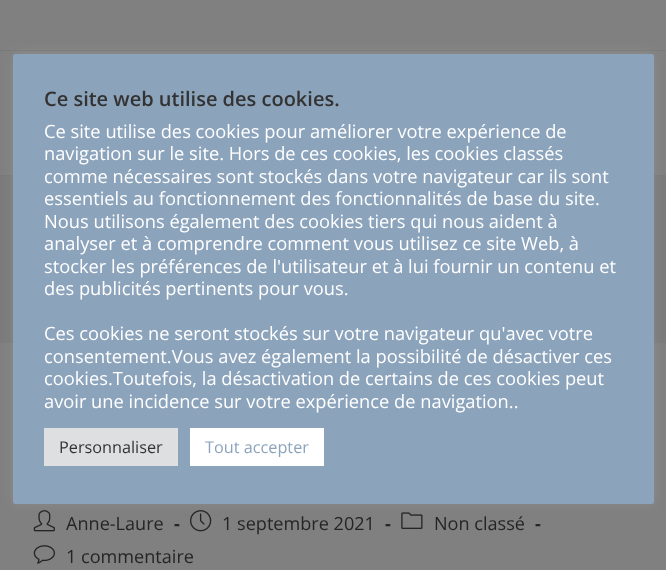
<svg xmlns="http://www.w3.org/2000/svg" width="666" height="570">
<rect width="100%" height="100%" fill="#808080"/>
<rect y="50" width="666" height="1" fill="#797979"/>
<rect y="175" width="666" height="1" fill="#797979"/>
<rect y="176" width="666" height="167" fill="#7b7b7b"/>
<image x="33" y="510" width="22" height="22" href="media/1.png"/>
<image x="190" y="510" width="22" height="22" href="media/2.png"/>
<image x="401" y="512" width="22" height="17" href="media/3.png"/>
<rect x="13" y="53" width="641" height="450" rx="2.5" fill="#acabab4d" filter="blur(6px)"/>
<rect x="13" y="54" width="641" height="450" rx="2.5" fill="#8ca3bc"/>
<text x="44" y="106" style="font-family:Open Sans;font-size:20px;font-weight:600;fill:#333">Ce site web utilise des cookies.</text>
<text x="44" y="138" style="font-family:Open Sans;font-size:18.3px;fill:#fff">Ce site utilise des cookies pour améliorer votre expérience de</text>
<text x="44" y="160" style="font-family:Open Sans;font-size:18.3px;fill:#fff">navigation sur le site. Hors de ces cookies, les cookies classés</text>
<text x="44" y="183" style="font-family:Open Sans;font-size:18.3px;fill:#fff">comme nécessaires sont stockés dans votre navigateur car ils sont</text>
<text x="44" y="205" style="font-family:Open Sans;font-size:18.3px;fill:#fff">essentiels au fonctionnement des fonctionnalités de base du site.</text>
<text x="44" y="228" style="font-family:Open Sans;font-size:18.3px;fill:#fff">Nous utilisons également des cookies tiers qui nous aident à</text>
<text x="44" y="250" style="font-family:Open Sans;font-size:18.3px;fill:#fff">analyser et à comprendre comment vous utilisez ce site Web, à</text>
<text x="44" y="273" style="font-family:Open Sans;font-size:18.3px;fill:#fff">stocker les préférences de l'utilisateur et à lui fournir un contenu et</text>
<text x="44" y="295" style="font-family:Open Sans;font-size:18.3px;fill:#fff">des publicités pertinents pour vous.</text>
<text x="44" y="340" style="font-family:Open Sans;font-size:18.3px;fill:#fff">Ces cookies ne seront stockés sur votre navigateur qu'avec votre</text>
<text x="44" y="363" style="font-family:Open Sans;font-size:18.3px;fill:#fff">consentement.Vous avez également la possibilité de désactiver ces</text>
<text x="44" y="385" style="font-family:Open Sans;font-size:18.3px;fill:#fff">cookies.Toutefois, la désactivation de certains de ces cookies peut</text>
<text x="44" y="408" style="font-family:Open Sans;font-size:18.3px;fill:#fff">avoir une incidence sur votre expérience de navigation..</text>
<rect x="44" y="428" width="134" height="38" fill="#dedfe0"/>
<text x="59" y="453" style="font-family:Open Sans;font-size:16.25px;fill:#333">Personnaliser</text>
<rect x="190" y="428" width="134" height="38" fill="#fff"/>
<text x="205" y="453" style="font-family:Open Sans;font-size:16.25px;fill:#8ca3bc">Tout accepter</text>
<text x="66" y="530" style="font-family:Open Sans;font-size:18.1px;fill:#252525">Anne-Laure</text>
<text x="174" y="530" style="font-family:Open Sans;font-size:18.1px;font-weight:bold;fill:#252525">-</text>
<text x="222" y="530" style="font-family:Open Sans;font-size:18.1px;fill:#252525">1 septembre 2021</text>
<text x="385" y="530" style="font-family:Open Sans;font-size:18.1px;font-weight:bold;fill:#252525">-</text>
<text x="434" y="530" style="font-family:Open Sans;font-size:18.1px;fill:#252525">Non classé</text>
<text x="535" y="530" style="font-family:Open Sans;font-size:18.1px;font-weight:bold;fill:#252525">-</text>
<image x="33" y="545" width="22" height="19" href="media/4.png"/>
<text x="66" y="563" style="font-family:Open Sans;font-size:18.1px;fill:#252525">1 commentaire</text>
</svg>
